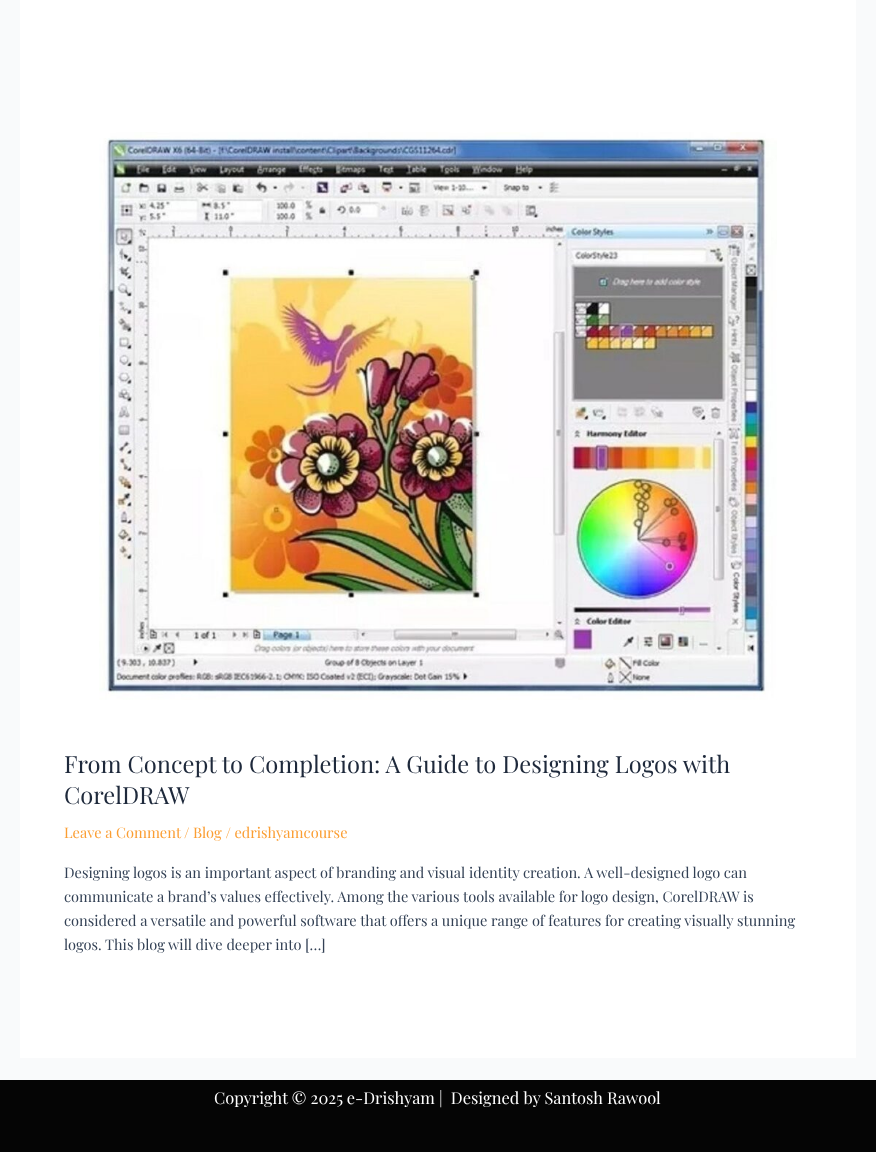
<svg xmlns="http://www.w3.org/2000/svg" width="876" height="1152">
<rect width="100%" height="100%" fill="#f9fafb"/>
<rect x="20" width="836" height="1058" fill="#fff"/>
<image x="99" y="132" width="678" height="568" href="media/1.png"/>
<text x="64" y="773" style="font-family:Playfair Display;font-size:23.7px;fill:#1e293b">From Concept to Completion: A Guide to Designing Logos with</text>
<text x="64" y="804" style="font-family:Playfair Display;font-size:23.7px;fill:#1e293b">CorelDRAW</text>
<text x="64" y="838" style="font-family:Playfair Display;font-size:14.6px;fill:#fb9e33">Leave a Comment</text>
<text x="184" y="838" style="font-family:Playfair Display;font-size:14.6px;fill:#fb9e33">/ Blog / edrishyamcourse</text>
<text x="64" y="878" style="font-family:Playfair Display;font-size:14.6px;fill:#334155">Designing logos is an important aspect of branding and visual identity creation. A well-designed logo can</text>
<text x="64" y="902" style="font-family:Playfair Display;font-size:14.6px;fill:#334155">communicate a brand’s values effectively. Among the various tools available for logo design, CorelDRAW is</text>
<text x="64" y="926" style="font-family:Playfair Display;font-size:14.6px;fill:#334155">considered a versatile and powerful software that offers a unique range of features for creating visually stunning</text>
<text x="64" y="950" style="font-family:Playfair Display;font-size:14.6px;fill:#334155">logos. This blog will dive deeper into […]</text>
<rect y="1080" width="876" height="72" fill="#050505"/>
<text x="214" y="1104" style="font-family:Playfair Display;font-size:16.4px;fill:#fff" xml:space="preserve">Copyright © 2025 e-Drishyam |  Designed by Santosh Rawool</text>
</svg>
